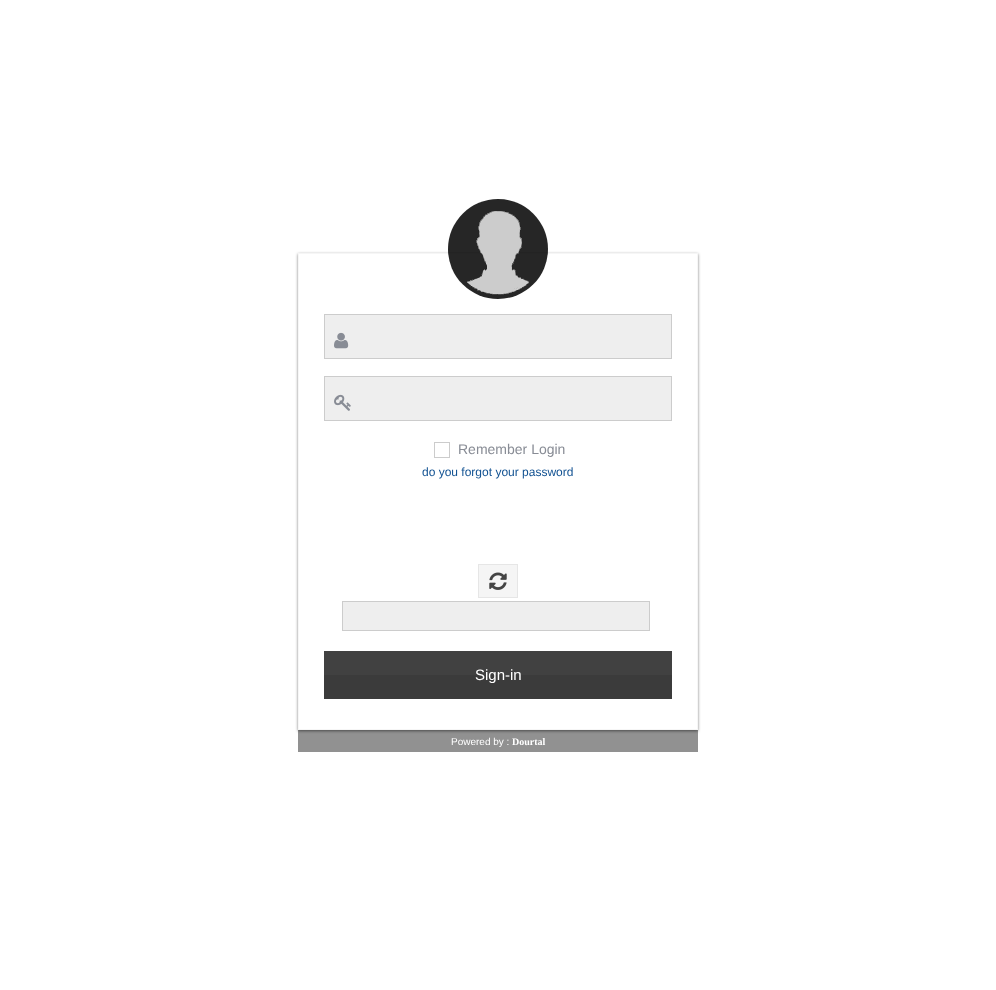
<svg xmlns="http://www.w3.org/2000/svg" width="996" height="990">
<defs>
<clipPath id="clip1"><path d="M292 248h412v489h-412zm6 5h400v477h-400z" clip-rule="evenodd"/></clipPath>
</defs>
<rect width="100%" height="100%" fill="#fff"/>
<rect x="298" y="730" width="400" height="22" fill="#919191"/>
<g clip-path="url(#clip1)">
<rect x="298" y="254" width="400" height="477" fill="#00000080" filter="blur(1.5px)"/>
</g>
<rect x="298.5" y="253.5" width="399" height="476" fill="none" stroke="#f6f6f6"/>
<circle cx="498" cy="249" r="50" fill="#000000d9"/>
<image x="467" y="211" width="62" height="84" href="media/1.png"/>
<rect x="324.5" y="314.5" width="347" height="44" fill="#eee" stroke="#ccc"/>
<image x="334" y="332" width="15" height="17" href="media/2.png"/>
<rect x="324.5" y="376.5" width="347" height="44" fill="#eee" stroke="#ccc"/>
<image x="334" y="394" width="17" height="17" href="media/3.png"/>
<rect x="434.5" y="442.5" width="15" height="15" fill="none" stroke="#ccc"/>
<text x="458" y="454" style="font-family:Liberation Sans;font-size:14px;fill:#888c95">Remember Login</text>
<text x="422" y="476" style="font-family:Liberation Sans;font-size:12px;fill:#125292">do you forgot your password</text>
<rect x="478.5" y="564.5" width="39" height="33" fill="#f5f5f5" stroke="#e6e6e6"/>
<image x="489" y="572" width="18" height="18" href="media/4.png"/>
<rect x="342.5" y="601.5" width="307" height="29" fill="#eee" stroke="#ccc"/>
<rect x="324" y="675" width="348" height="24" fill="#3b3b3b"/>
<rect x="324" y="651" width="348" height="24" fill="#414141"/>
<text x="475" y="680" style="font-family:Liberation Sans;font-size:15px;fill:#fff">Sign-in</text>
<text x="451" y="745" style="font-family:Liberation Sans;font-size:10px;fill:#fff">Powered by :</text>
<text x="512" y="745" style="font-family:Liberation Serif;font-size:10px;font-weight:bold;fill:#fff">Dourtal</text>
</svg>
